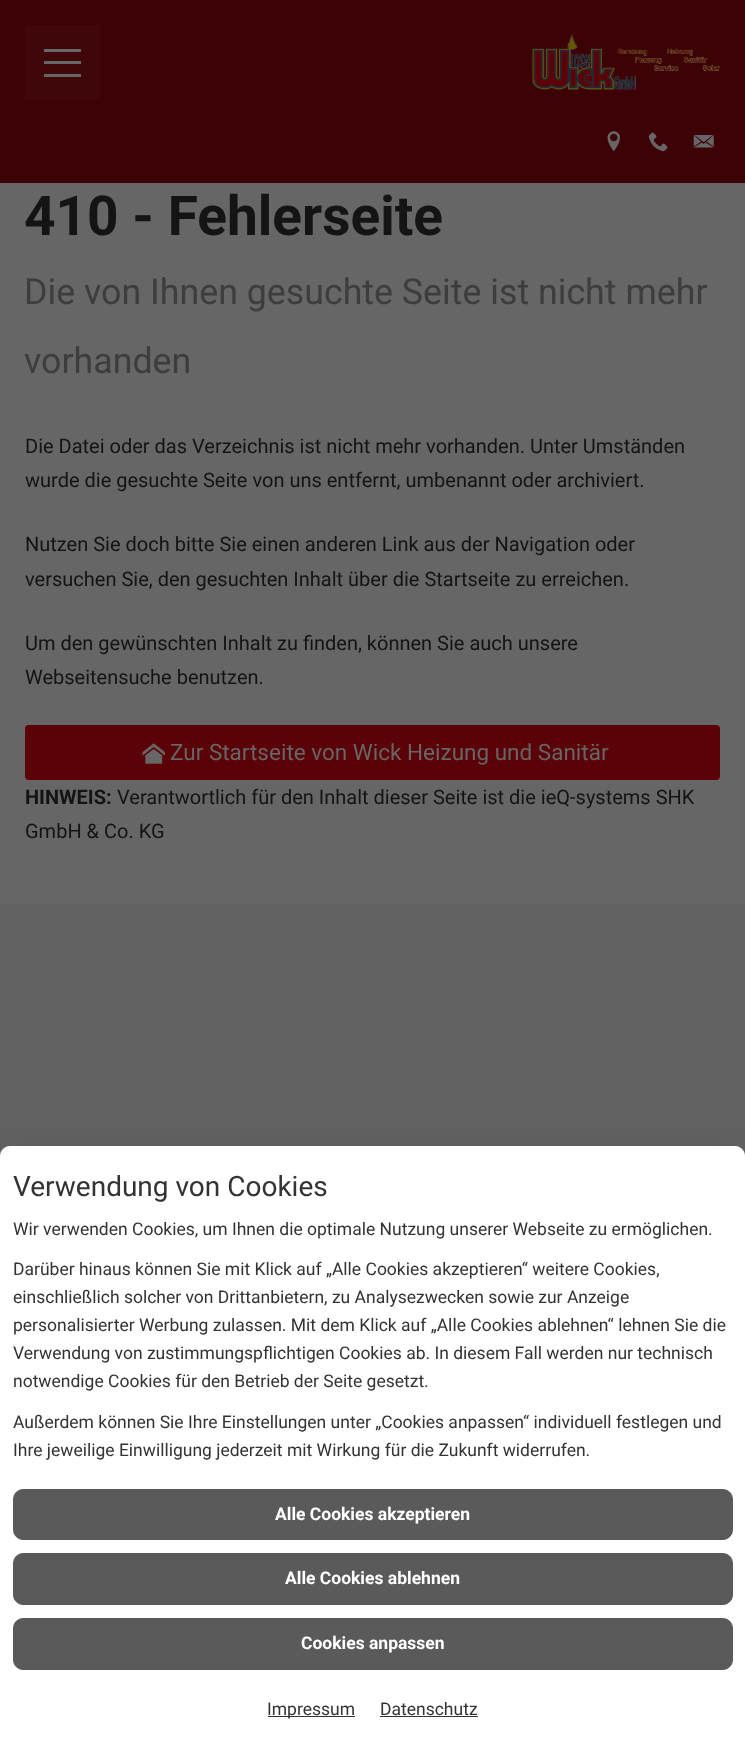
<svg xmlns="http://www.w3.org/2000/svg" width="745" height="1747">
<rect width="100%" height="100%" fill="#666"/>
<rect width="745" height="183" fill="#3d0205"/>
<rect x="25" y="25" width="75" height="75" fill="#3f070a"/>
<rect x="44" y="49" width="37" height="3" fill="#666"/>
<rect x="44" y="61" width="37" height="3" fill="#666"/>
<rect x="44" y="74" width="37" height="3" fill="#666"/>
<image x="532" y="34" width="188" height="56" href="media/1.png"/>
<image x="607" y="131" width="13" height="21" href="media/2.png"/>
<image x="648" y="132" width="20" height="20" href="media/3.png"/>
<image x="693" y="135" width="21" height="13" href="media/4.png"/>
<text x="24" y="235" style="font-family:Roboto;font-size:55px;font-weight:bold;fill:#141414">410 - Fehlerseite</text>
<text x="24" y="304" style="font-family:Roboto;font-size:35.75px;fill:#3d3d3d">Die von Ihnen gesuchte Seite ist nicht mehr</text>
<text x="24" y="373" style="font-family:Roboto;font-size:35.75px;fill:#3d3d3d">vorhanden</text>
<text x="25" y="453" style="font-family:Roboto;font-size:20px;fill:#141414">Die Datei oder das Verzeichnis ist nicht mehr vorhanden. Unter Umständen</text>
<text x="25" y="487" style="font-family:Roboto;font-size:20px;fill:#141414">wurde die gesuchte Seite von uns entfernt, umbenannt oder archiviert.</text>
<text x="25" y="551" style="font-family:Roboto;font-size:20px;fill:#141414">Nutzen Sie doch bitte Sie einen anderen Link aus der Navigation oder</text>
<text x="25" y="586" style="font-family:Roboto;font-size:20px;fill:#141414">versuchen Sie, den gesuchten Inhalt über die Startseite zu erreichen.</text>
<text x="25" y="650" style="font-family:Roboto;font-size:20px;fill:#141414">Um den gewünschten Inhalt zu finden, können Sie auch unsere</text>
<text x="25" y="684" style="font-family:Roboto;font-size:20px;fill:#141414">Webseitensuche benutzen.</text>
<rect x="25" y="725" width="695" height="55" rx="4" fill="#5b0208"/>
<image x="142" y="743" width="23" height="21" href="media/5.png"/>
<text x="170" y="760" style="font-family:Roboto;font-size:22.5px;fill:#666">Zur Startseite von Wick Heizung und Sanitär</text>
<text x="25" y="804" style="font-family:Roboto;font-size:20px;font-weight:bold;fill:#141414">HINWEIS:</text>
<text x="117" y="804" style="font-family:Roboto;font-size:20px;fill:#141414">Verantwortlich für den Inhalt dieser Seite ist die ieQ-systems SHK</text>
<text x="25" y="838" style="font-family:Roboto;font-size:20px;fill:#141414">GmbH &amp; Co. KG</text>
<rect y="904" width="745" height="252" fill="#626262"/>
<rect y="1154" width="745" height="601" rx="10" fill="#0000001a" filter="blur(17.5px)"/>
<path d="M10 1146h725c5.5 0 10 4.5 10 10v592h-745v-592c0-5.5 4.5-10 10-10z" fill="#fff"/>
<text x="13" y="1196" style="font-family:Roboto;font-size:28px;fill:#333">Verwendung von Cookies</text>
<text x="13" y="1235" style="font-family:Roboto;font-size:17.5px;fill:#333">Wir verwenden Cookies, um Ihnen die optimale Nutzung unserer Webseite zu ermöglichen.</text>
<text x="13" y="1275" style="font-family:Roboto;font-size:17.5px;fill:#333">Darüber hinaus können Sie mit Klick auf „Alle Cookies akzeptieren“ weitere Cookies,</text>
<text x="13" y="1303" style="font-family:Roboto;font-size:17.5px;fill:#333">einschließlich solcher von Drittanbietern, zu Analysezwecken sowie zur Anzeige</text>
<text x="13" y="1331" style="font-family:Roboto;font-size:17.5px;fill:#333">personalisierter Werbung zulassen. Mit dem Klick auf „Alle Cookies ablehnen“ lehnen Sie die</text>
<text x="13" y="1359" style="font-family:Roboto;font-size:17.5px;fill:#333">Verwendung von zustimmungspflichtigen Cookies ab. In diesem Fall werden nur technisch</text>
<text x="13" y="1387" style="font-family:Roboto;font-size:17.5px;fill:#333">notwendige Cookies für den Betrieb der Seite gesetzt.</text>
<text x="13" y="1428" style="font-family:Roboto;font-size:17.5px;fill:#333">Außerdem können Sie Ihre Einstellungen unter „Cookies anpassen“ individuell festlegen und</text>
<text x="13" y="1456" style="font-family:Roboto;font-size:17.5px;fill:#333">Ihre jeweilige Einwilligung jederzeit mit Wirkung für die Zukunft widerrufen.</text>
<rect x="13.5" y="1489.5" width="719" height="50" rx="9.5" fill="#5a5a5a" stroke="#5a5a5a"/>
<text x="275" y="1520" style="font-family:Roboto;font-size:17.5px;font-weight:bold;fill:#fff">Alle Cookies akzeptieren</text>
<rect x="13.5" y="1553.5" width="719" height="51" rx="9.5" fill="#5a5a5a" stroke="#5a5a5a"/>
<text x="285" y="1584" style="font-family:Roboto;font-size:17.5px;font-weight:bold;fill:#fff">Alle Cookies ablehnen</text>
<rect x="13.5" y="1618.5" width="719" height="51" rx="9.5" fill="#5a5a5a" stroke="#5a5a5a"/>
<text x="301" y="1649" style="font-family:Roboto;font-size:17.5px;font-weight:bold;fill:#fff">Cookies anpassen</text>
<rect x="268" y="1716" width="87" height="1" fill="#333"/>
<text x="267" y="1715" style="font-family:Roboto;font-size:17.5px;fill:#333">Impressum</text>
<text x="380" y="1715" style="font-family:Roboto;font-size:17.5px;fill:#333">Datenschutz</text>
<rect x="380" y="1716" width="98" height="1" fill="#333"/>
</svg>
